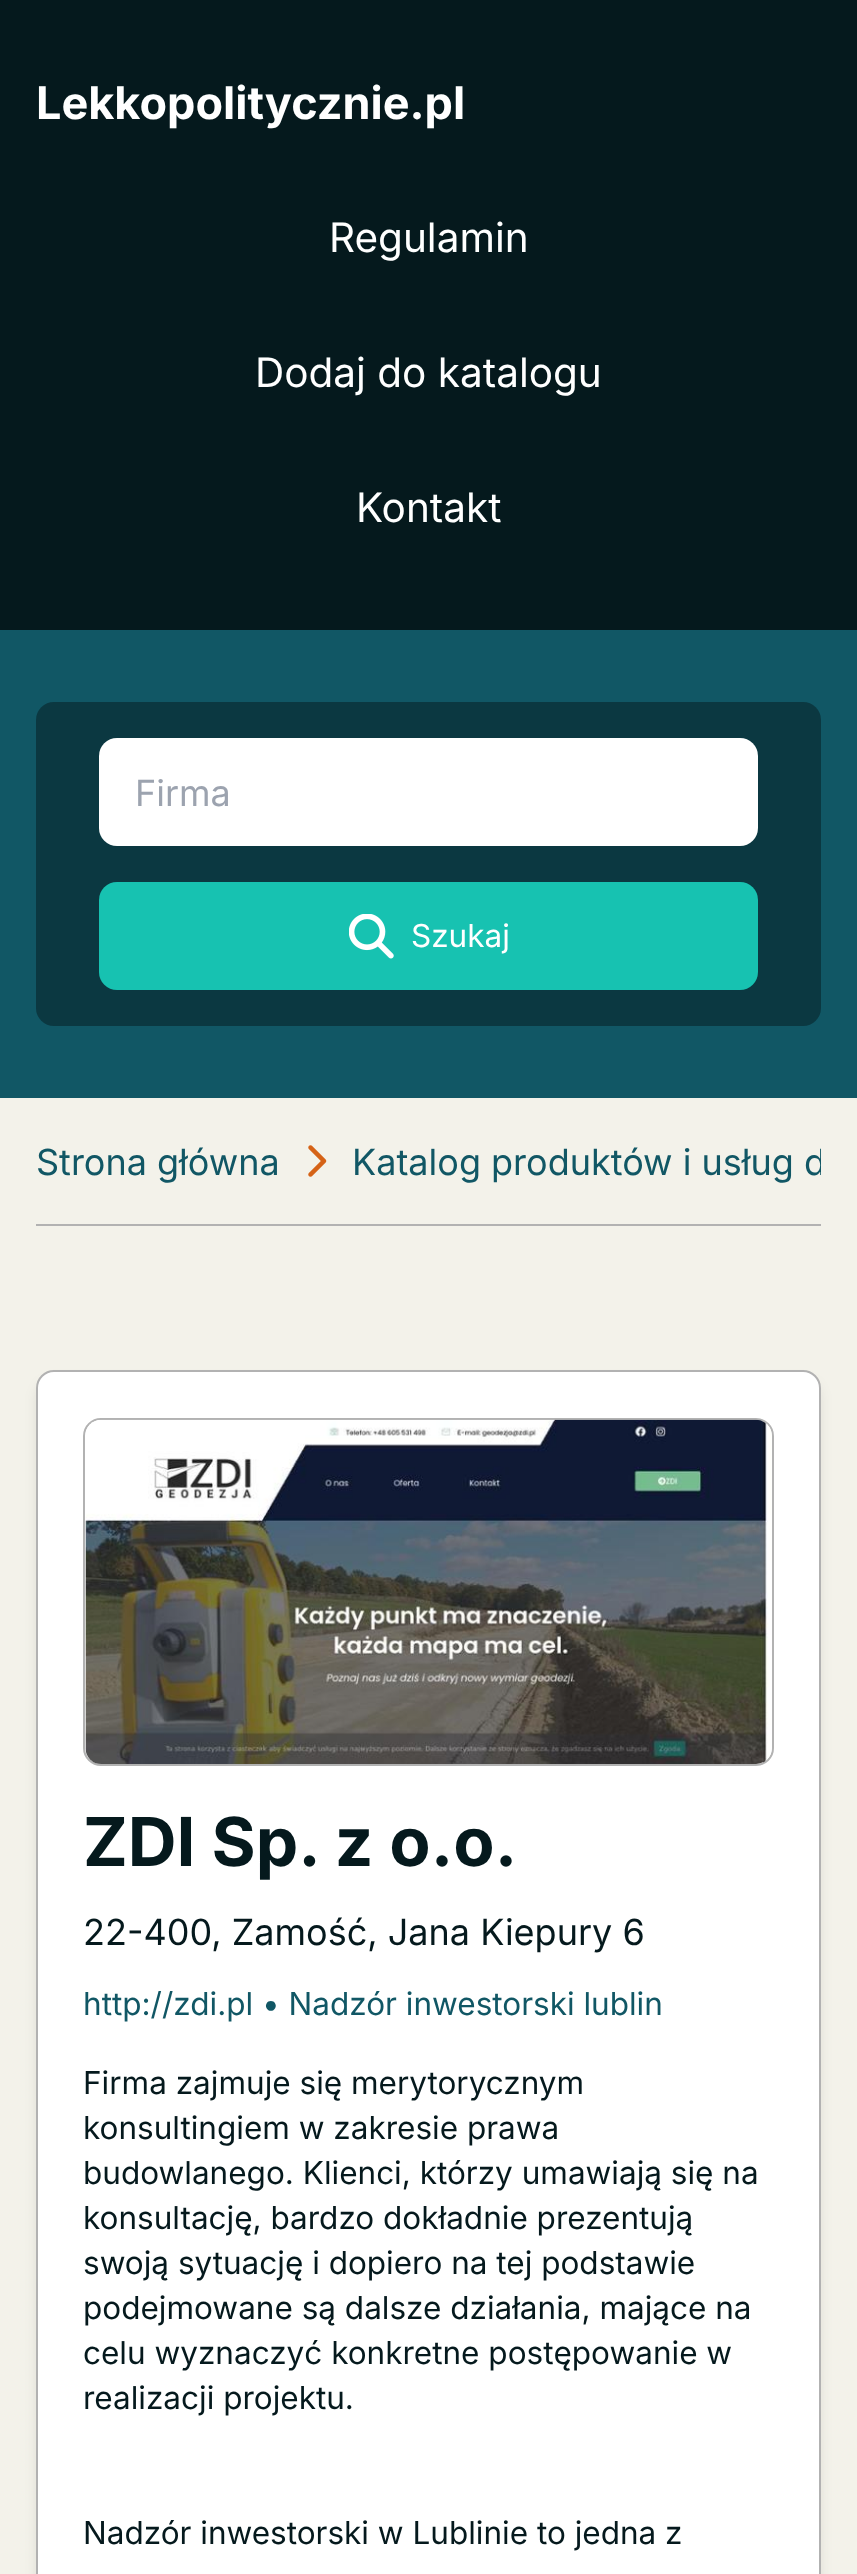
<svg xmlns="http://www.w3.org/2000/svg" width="857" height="2574">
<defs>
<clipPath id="clip1"><rect x="36" y="1098" width="785" height="126"/></clipPath>
</defs>
<rect width="100%" height="100%" fill="#f3f2ea"/>
<rect width="857" height="630" fill="#05191d"/>
<text x="36" y="119" style="font-family:Inter;font-size:45px;font-weight:bold;fill:#fff">Lekkopolitycznie.pl</text>
<text x="329" y="252" style="font-family:Inter;font-size:40.5px;fill:#fff">Regulamin</text>
<text x="255" y="387" style="font-family:Inter;font-size:40.5px;fill:#fff">Dodaj do katalogu</text>
<text x="356" y="522" style="font-family:Inter;font-size:40.5px;fill:#fff">Kontakt</text>
<rect y="630" width="857" height="468" fill="#115765"/>
<rect x="36" y="702" width="785" height="324" rx="18" fill="#0b3841"/>
<rect x="99" y="738" width="659" height="108" rx="18" fill="#fff"/>
<text x="135" y="806" style="font-family:Inter;font-size:36px;fill:#9ca3af">Firma</text>
<rect x="99" y="882" width="659" height="108" rx="18" fill="#17c2b1"/>
<image x="349" y="914" width="45" height="45" href="media/1.png"/>
<text x="411" y="947" style="font-family:Inter;font-size:31.5px;fill:#fff">Szukaj</text>
<rect x="36" y="1224" width="785" height="2" fill="#b2b2b2"/>
<text x="36" y="1175" style="font-family:Inter;font-size:36px;fill:#115765">Strona główna</text>
<image x="308" y="1145" width="19" height="32" href="media/2.png"/>
<g clip-path="url(#clip1)">
<text x="352" y="1175" style="font-family:Inter;font-size:36px;fill:#115765">Katalog produktów i usług d</text>
</g>
<rect x="38" y="1382" width="781" height="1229" rx="16" fill="#0000001a" filter="blur(7px)"/>
<rect x="37" y="1371" width="783" height="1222" rx="17" fill="#fff" stroke="#b2b2b2" stroke-width="2"/>
<rect x="84" y="1419" width="689" height="346" rx="17" fill="none" stroke="#b2b2b2" stroke-width="2"/>
<image x="85" y="1419" width="687" height="345" href="media/3.png"/>
<text x="83" y="1866" style="font-family:Inter;font-size:67.5px;font-weight:bold;fill:#05191d">ZDI Sp. z o.o.</text>
<text x="83" y="1945" style="font-family:Inter;font-size:36px;fill:#05191d">22-400, Zamość, Jana Kiepury 6</text>
<text x="83" y="2015" style="font-family:Inter;font-size:31.5px;fill:#115765">http://zdi.pl • Nadzór inwestorski lublin</text>
<text x="83" y="2094" style="font-family:Inter;font-size:31.5px;fill:#05191d">Firma zajmuje się merytorycznym</text>
<text x="83" y="2139" style="font-family:Inter;font-size:31.5px;fill:#05191d">konsultingiem w zakresie prawa</text>
<text x="83" y="2184" style="font-family:Inter;font-size:31.5px;fill:#05191d">budowlanego. Klienci, którzy umawiają się na</text>
<text x="83" y="2229" style="font-family:Inter;font-size:31.5px;fill:#05191d">konsultację, bardzo dokładnie prezentują</text>
<text x="83" y="2274" style="font-family:Inter;font-size:31.5px;fill:#05191d">swoją sytuację i dopiero na tej podstawie</text>
<text x="83" y="2319" style="font-family:Inter;font-size:31.5px;fill:#05191d">podejmowane są dalsze działania, mające na</text>
<text x="83" y="2364" style="font-family:Inter;font-size:31.5px;fill:#05191d">celu wyznaczyć konkretne postępowanie w</text>
<text x="83" y="2409" style="font-family:Inter;font-size:31.5px;fill:#05191d">realizacji projektu.</text>
<text x="83" y="2544" style="font-family:Inter;font-size:31.5px;fill:#05191d">Nadzór inwestorski w Lublinie to jedna z</text>
</svg>
